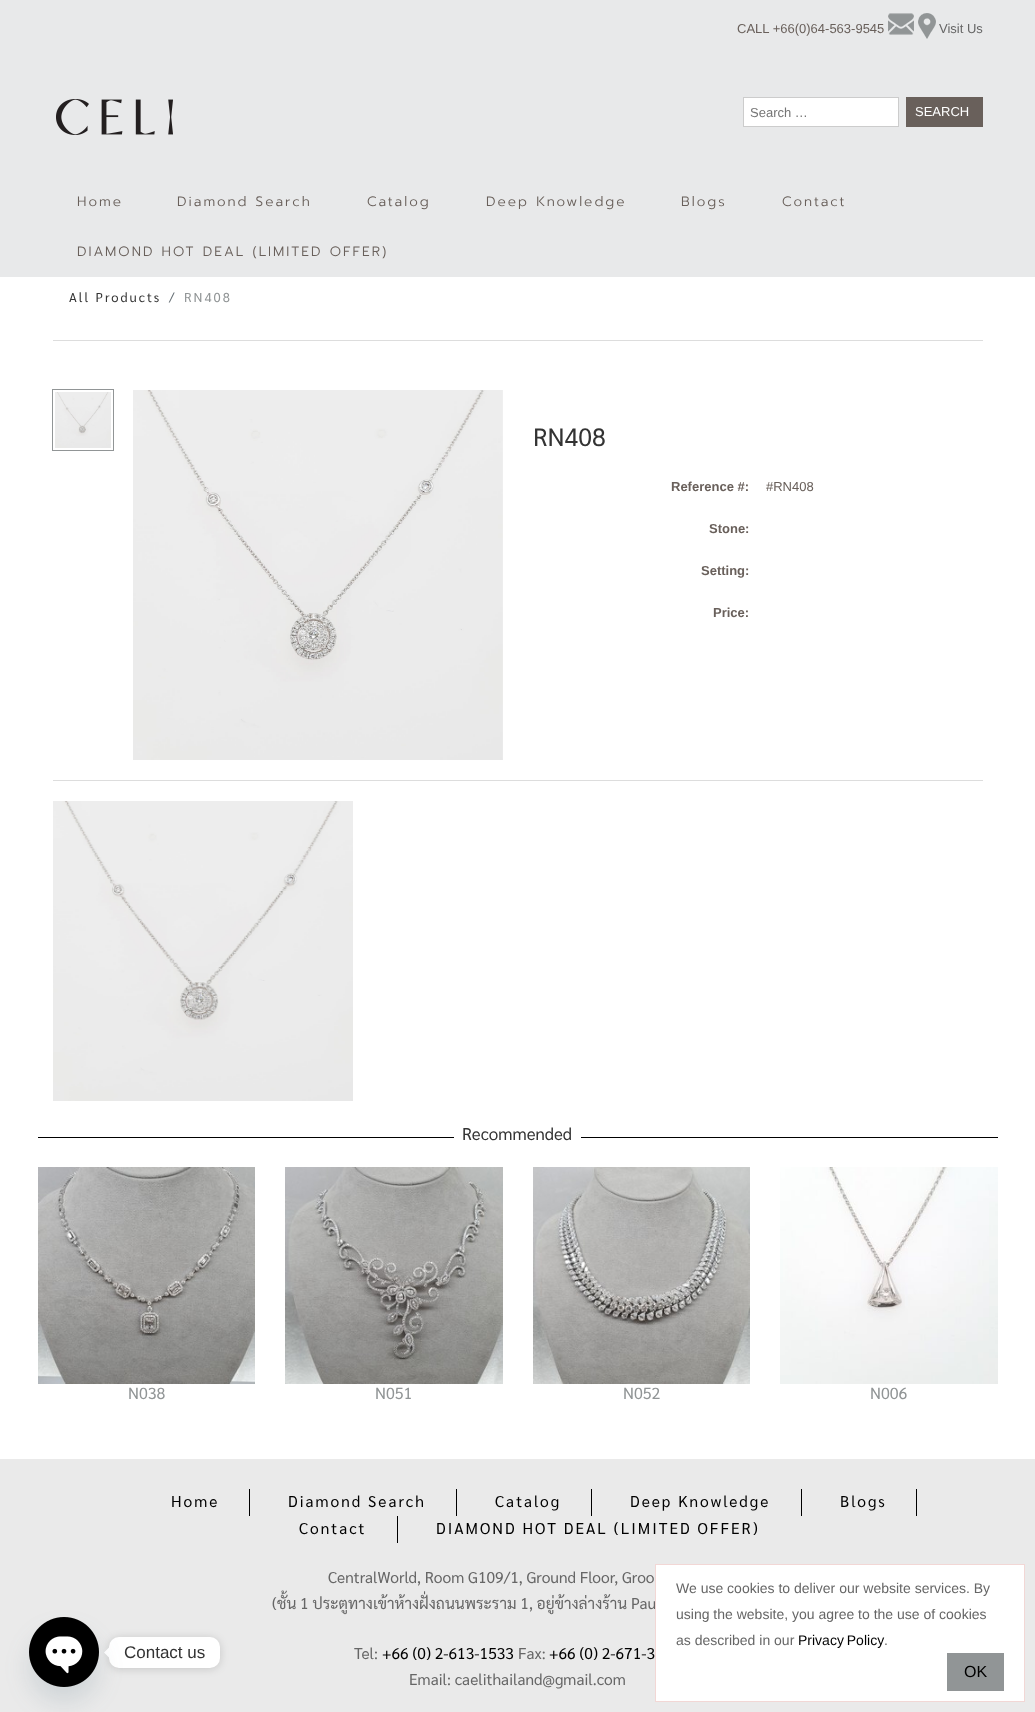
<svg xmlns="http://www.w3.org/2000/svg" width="1035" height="1712">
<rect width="100%" height="100%" fill="#fff"/>
<rect width="1035" height="277" fill="#e8e9ea"/>
<text x="737" y="33" style="font-family:Liberation Sans;font-size:13px;fill:#69605b">CALL +66(0)64-563-9545</text>
<image x="888" y="13" width="26" height="22" href="media/1.png"/>
<image x="918" y="13" width="18" height="26" href="media/2.png"/>
<text x="939" y="33" style="font-family:Liberation Sans;font-size:13px;fill:#666">Visit Us</text>
<image x="56" y="99" width="117" height="36" href="media/3.png"/>
<rect x="743.5" y="97.5" width="155" height="29" fill="#fff" stroke="#ccc"/>
<text x="750" y="117" style="font-family:Liberation Sans;font-size:13px;fill:#757575">Search …</text>
<rect x="906" y="97" width="77" height="30" fill="#69605b"/>
<text x="915" y="116" style="font-family:Liberation Sans;font-size:13px;fill:#fff">SEARCH</text>
<text x="77" y="206" style="font-family:Prompt;font-size:13.6px;font-weight:300;letter-spacing:2px;fill:#69605b">Home</text>
<text x="177" y="206" style="font-family:Prompt;font-size:13.6px;font-weight:300;letter-spacing:2px;fill:#69605b">Diamond Search</text>
<text x="367" y="206" style="font-family:Prompt;font-size:13.6px;font-weight:300;letter-spacing:2px;fill:#69605b">Catalog</text>
<text x="486" y="206" style="font-family:Prompt;font-size:13.6px;font-weight:300;letter-spacing:2px;fill:#69605b">Deep Knowledge</text>
<text x="681" y="206" style="font-family:Prompt;font-size:13.6px;font-weight:300;letter-spacing:2px;fill:#69605b">Blogs</text>
<text x="782" y="206" style="font-family:Prompt;font-size:13.6px;font-weight:300;letter-spacing:2px;fill:#69605b">Contact</text>
<text x="77" y="256" style="font-family:Prompt;font-size:13.6px;font-weight:300;letter-spacing:2px;fill:#69605b">DIAMOND HOT DEAL (LIMITED OFFER)</text>
<text x="69" y="302" style="font-family:Sarabun;font-size:13px;letter-spacing:2px;fill:#333">All Products</text>
<text x="169" y="302" style="font-family:Sarabun;font-size:13px;letter-spacing:2px;fill:#636c72">/</text>
<text x="184" y="302" style="font-family:Sarabun;font-size:13px;letter-spacing:2px;fill:#919596">RN408</text>
<rect x="53" y="340" width="930" height="1" fill="#ddd"/>
<image x="55" y="392" width="56" height="56" href="media/4.png"/>
<rect x="52.5" y="389.5" width="61" height="61" fill="none" stroke="#919596"/>
<image x="133" y="390" width="370" height="370" href="media/5.png"/>
<text x="533" y="446" style="font-family:Sarabun;font-size:25px;fill:#333">RN408</text>
<text x="671" y="491" style="font-family:Liberation Sans;font-size:13px;font-weight:bold;fill:#69605b">Reference #:</text>
<text x="766" y="491" style="font-family:Liberation Sans;font-size:13px;fill:#69605b">#RN408</text>
<text x="709" y="533" style="font-family:Liberation Sans;font-size:13px;font-weight:bold;fill:#69605b">Stone:</text>
<text x="701" y="575" style="font-family:Liberation Sans;font-size:13px;font-weight:bold;fill:#69605b">Setting:</text>
<text x="713" y="617" style="font-family:Liberation Sans;font-size:13px;font-weight:bold;fill:#69605b">Price:</text>
<rect x="53" y="780" width="930" height="1" fill="#ddd"/>
<image x="53" y="801" width="300" height="300" href="media/6.png"/>
<rect x="38" y="1137" width="416" height="1" fill="#000"/>
<text x="462" y="1140" style="font-family:Sarabun;font-size:17px;fill:#333">Recommended</text>
<rect x="581" y="1137" width="417" height="1" fill="#000"/>
<image x="38" y="1167" width="217" height="217" href="media/7.png"/>
<text x="128" y="1399" style="font-family:Sarabun;font-size:16px;fill:#919596">N038</text>
<image x="285" y="1167" width="218" height="217" href="media/8.png"/>
<text x="375" y="1399" style="font-family:Sarabun;font-size:16px;fill:#919596">N051</text>
<image x="533" y="1167" width="217" height="217" href="media/9.png"/>
<text x="623" y="1399" style="font-family:Sarabun;font-size:16px;fill:#919596">N052</text>
<image x="780" y="1167" width="218" height="217" href="media/10.png"/>
<text x="870" y="1399" style="font-family:Sarabun;font-size:16px;fill:#919596">N006</text>
<rect y="1459" width="1035" height="253" fill="#eaeaea"/>
<rect x="249" y="1489" width="1" height="27" fill="#000"/>
<text x="171" y="1507" style="font-family:Sarabun;font-size:15.6px;letter-spacing:2px;fill:#000">Home</text>
<rect x="456" y="1489" width="1" height="27" fill="#000"/>
<text x="288" y="1507" style="font-family:Sarabun;font-size:15.6px;letter-spacing:2px;fill:#000">Diamond Search</text>
<rect x="591" y="1489" width="1" height="27" fill="#000"/>
<text x="495" y="1507" style="font-family:Sarabun;font-size:15.6px;letter-spacing:2px;fill:#000">Catalog</text>
<rect x="801" y="1489" width="1" height="27" fill="#000"/>
<text x="630" y="1507" style="font-family:Sarabun;font-size:15.6px;letter-spacing:2px;fill:#000">Deep Knowledge</text>
<rect x="916" y="1489" width="1" height="27" fill="#000"/>
<text x="840" y="1507" style="font-family:Sarabun;font-size:15.6px;letter-spacing:2px;fill:#000">Blogs</text>
<rect x="397" y="1516" width="1" height="27" fill="#000"/>
<text x="299" y="1534" style="font-family:Sarabun;font-size:15.6px;letter-spacing:2px;fill:#000">Contact</text>
<text x="436" y="1534" style="font-family:Sarabun;font-size:15.6px;letter-spacing:2px;fill:#000">DIAMOND HOT DEAL (LIMITED OFFER)</text>
<text x="328" y="1583" style="font-family:Sarabun;font-size:15.6px;fill:#666">CentralWorld, Room G109/1, Ground Floor, Groo</text>
<text x="272" y="1609" style="font-family:Sarabun;font-size:15.6px;fill:#666">(ชั้น 1 ประตูทางเข้าห้างฝั่งถนนพระราม 1, อยู่ข้างล่างร้าน Pau</text>
<text x="354" y="1659" style="font-family:Sarabun;font-size:15.6px;fill:#666">Tel:</text>
<text x="382" y="1659" style="font-family:Sarabun;font-size:15.6px;fill:#000">+66 (0) 2-613-1533</text>
<text x="518" y="1659" style="font-family:Sarabun;font-size:15.6px;fill:#666">Fax:</text>
<text x="549" y="1659" style="font-family:Sarabun;font-size:15.6px;fill:#000">+66 (0) 2-671-3</text>
<text x="409" y="1685" style="font-family:Sarabun;font-size:15.6px;fill:#666">Email: caelithailand@gmail.com</text>
<rect x="109" y="1638" width="111" height="31" rx="10" fill="#00000026" filter="blur(4px)"/>
<rect x="109" y="1637" width="111" height="31" rx="10" fill="#fff"/>
<path d="M109 1647.5v10l-5-5z" fill="#fff"/>
<rect x="29" y="1633" width="70" height="70" rx="35" fill="#49687e29" filter="blur(12px)"/>
<image x="29" y="1617" width="70" height="70" href="media/11.png"/>
<text x="124" y="1658" style="font-family:Liberation Sans;font-size:17px;fill:#333">Contact us</text>
<rect x="655.5" y="1564.5" width="369" height="137" fill="#fff" stroke="#f2d7d5"/>
<text x="676" y="1593" style="font-family:Liberation Sans;font-size:14px;fill:#666">We use cookies to deliver our website services. By</text>
<text x="676" y="1619" style="font-family:Liberation Sans;font-size:14px;fill:#666">using the website, you agree to the use of cookies</text>
<text x="676" y="1645" style="font-family:Liberation Sans;font-size:14px;fill:#666">as described in our</text>
<text x="798" y="1645" word-spacing="-1" style="font-family:Liberation Sans;font-size:14px;fill:#000">Privacy Policy</text>
<text x="884" y="1645" style="font-family:Liberation Sans;font-size:14px;fill:#666">.</text>
<rect x="947" y="1653" width="57" height="38" fill="#919596"/>
<text x="964" y="1677" style="font-family:Liberation Sans;font-size:16px;fill:#000">OK</text>
</svg>
